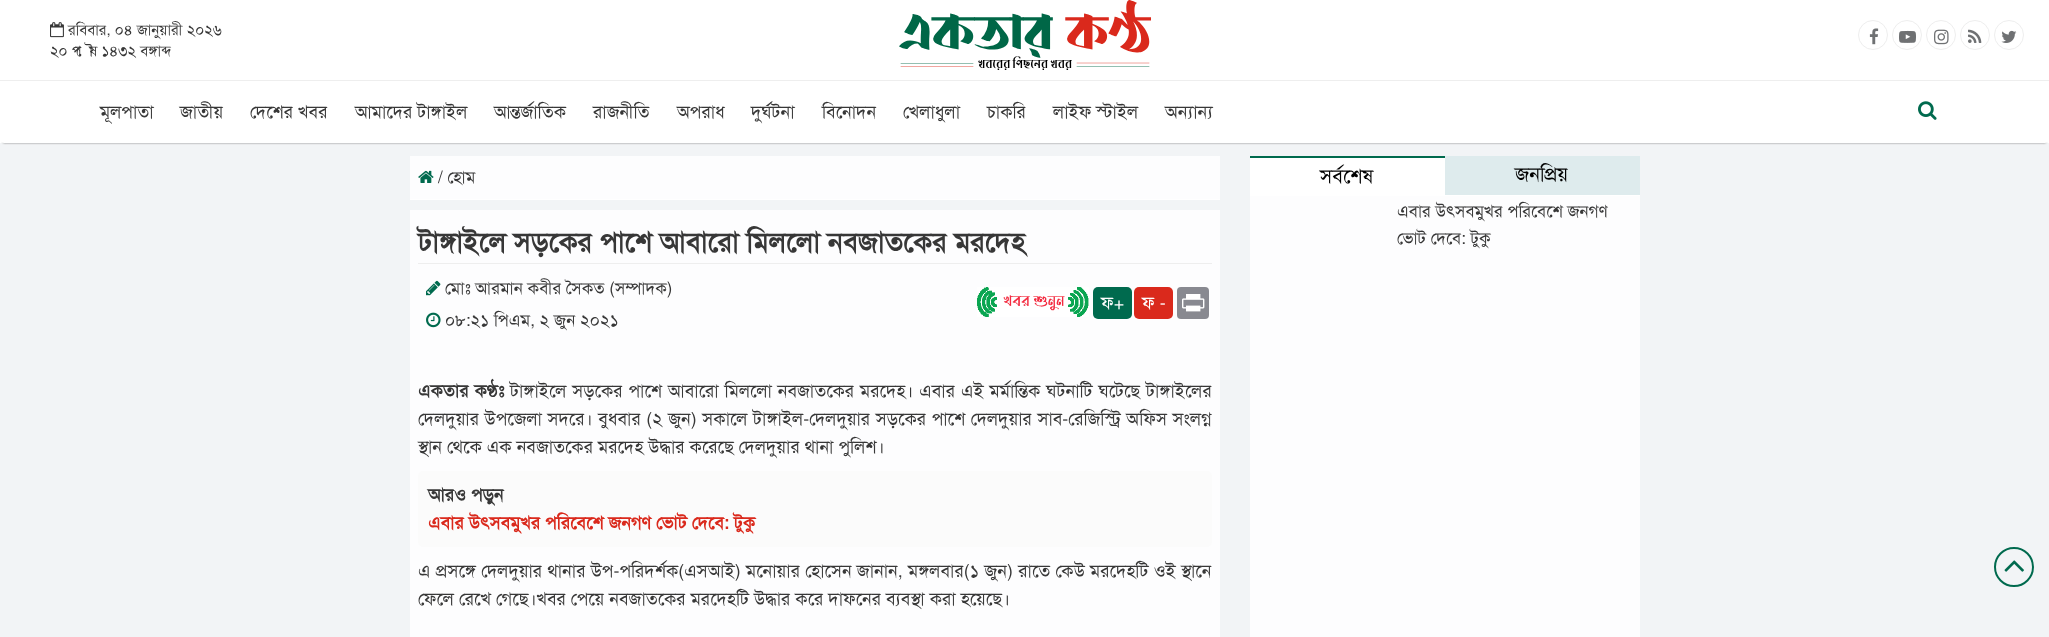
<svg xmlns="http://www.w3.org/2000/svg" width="2049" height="637">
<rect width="100%" height="100%" fill="#f2f4f6"/>
<rect width="2049" height="143" fill="#fff"/>
<rect y="80" width="2049" height="1" fill="#eee"/>
<image x="50" y="22" width="14" height="16" href="media/1.png"/>
<text x="68" y="35" style="font-family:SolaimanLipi;font-size:15px;fill:#373737">রবিবার, ০৪ জানুয়ারী ২০২৬</text>
<text x="50" y="56" style="font-family:SolaimanLipi;font-size:15px;fill:#373737">২০ পৌষ ১৪৩২ বঙ্গাব্দ</text>
<image x="899" y="0" width="252" height="70" href="media/2.png"/>
<circle cx="1873" cy="35" r="14.5" fill="none" stroke="#eee"/>
<image x="1869" y="28" width="10" height="17" href="media/3.png"/>
<circle cx="1907" cy="35" r="14.5" fill="none" stroke="#eee"/>
<image x="1899" y="30" width="17" height="13" href="media/4.png"/>
<circle cx="1941" cy="35" r="14.5" fill="none" stroke="#eee"/>
<image x="1934" y="29" width="15" height="16" href="media/5.png"/>
<circle cx="1975" cy="35" r="14.5" fill="none" stroke="#eee"/>
<image x="1968" y="29" width="14" height="14" href="media/6.png"/>
<circle cx="2009" cy="35" r="14.5" fill="none" stroke="#eee"/>
<image x="2001" y="30" width="16" height="13" href="media/7.png"/>
<rect x="3" y="87" width="2043" height="56" rx="1" fill="#808080" filter="blur(1px)"/>
<rect x="0.5" y="81.5" width="2048" height="61" rx="3.5" fill="#fff" stroke="#fff"/>
<text x="100" y="118" style="font-family:SolaimanLipi;font-size:18px;fill:#373737">মূলপাতা</text>
<text x="180" y="118" style="font-family:SolaimanLipi;font-size:18px;fill:#373737">জাতীয়</text>
<text x="250" y="118" style="font-family:SolaimanLipi;font-size:18px;fill:#373737">দেশের খবর</text>
<text x="355" y="118" style="font-family:SolaimanLipi;font-size:18px;fill:#373737">আমাদের টাঙ্গাইল</text>
<text x="494" y="118" style="font-family:SolaimanLipi;font-size:18px;fill:#373737">আন্তর্জাতিক</text>
<text x="593" y="118" style="font-family:SolaimanLipi;font-size:18px;fill:#373737">রাজনীতি</text>
<text x="677" y="118" style="font-family:SolaimanLipi;font-size:18px;fill:#373737">অপরাধ</text>
<text x="751" y="118" style="font-family:SolaimanLipi;font-size:18px;fill:#373737">দুর্ঘটনা</text>
<text x="822" y="118" style="font-family:SolaimanLipi;font-size:18px;fill:#373737">বিনোদন</text>
<text x="903" y="118" style="font-family:SolaimanLipi;font-size:18px;fill:#373737">খেলাধুলা</text>
<text x="987" y="118" style="font-family:SolaimanLipi;font-size:18px;fill:#373737">চাকরি</text>
<text x="1053" y="118" style="font-family:SolaimanLipi;font-size:18px;fill:#373737">লাইফ স্টাইল</text>
<text x="1165" y="118" style="font-family:SolaimanLipi;font-size:18px;fill:#373737">অন্যান্য</text>
<image x="1918" y="101" width="19" height="19" href="media/8.png"/>
<rect x="410" y="156" width="810" height="43" fill="#fdfdfe"/>
<rect x="410" y="199" width="810" height="1" fill="#fff"/>
<image x="418" y="170" width="16" height="13" href="media/9.png"/>
<text x="438" y="183" style="font-family:SolaimanLipi;font-size:17px;fill:#373737">/ হোম</text>
<rect x="410" y="210" width="810" height="427" fill="#fdfdfe"/>
<text x="418" y="252" style="font-family:SolaimanLipi;font-size:28px;font-weight:bold;fill:#373737">টাঙ্গাইলে সড়কের পাশে আবারো মিললো নবজাতকের মরদেহ</text>
<rect x="418" y="263" width="794" height="1" fill="#eee"/>
<image x="426" y="280" width="15" height="16" href="media/10.png"/>
<text x="445" y="294" style="font-family:SolaimanLipi;font-size:17px;fill:#373737">মোঃ আরমান কবীর সৈকত (সম্পাদক)</text>
<image x="426" y="312" width="15" height="16" href="media/11.png"/>
<text x="445" y="326" style="font-family:SolaimanLipi;font-size:17px;fill:#373737">০৮:২১ পিএম, ২ জুন ২০২১</text>
<image x="977" y="287" width="112" height="30" href="media/12.png"/>
<rect x="1093" y="287" width="39" height="32" rx="5" fill="#006a4e"/>
<text x="1101" y="309" style="font-family:SolaimanLipi;font-size:18px;fill:#fff">ফ+</text>
<rect x="1134" y="287" width="39" height="32" rx="5" fill="#da291c"/>
<text x="1142" y="309" style="font-family:SolaimanLipi;font-size:18px;fill:#fff">ফ -</text>
<rect x="1177" y="287" width="32" height="32" rx="4" fill="#888990"/>
<image x="1182" y="294" width="23" height="18" href="media/13.png"/>
<text x="418" y="397" word-spacing="1" style="font-family:SolaimanLipi;font-size:18px;font-weight:bold;fill:#373737">একতার কণ্ঠঃ</text>
<text x="510" y="397" word-spacing="0.9" style="font-family:SolaimanLipi;font-size:18px;fill:#373737">টাঙ্গাইলে সড়কের পাশে আবারো মিললো নবজাতকের মরদেহ। এবার এই মর্মান্তিক ঘটনাটি ঘটেছে টাঙ্গাইলের</text>
<text x="418" y="425" word-spacing="0.6" style="font-family:SolaimanLipi;font-size:18px;fill:#373737">দেলদুয়ার উপজেলা সদরে। বুধবার (২ জুন) সকালে টাঙ্গাইল-দেলদুয়ার সড়কের পাশে দেলদুয়ার সাব-রেজিস্ট্রি অফিস সংলগ্ন</text>
<text x="418" y="453" style="font-family:SolaimanLipi;font-size:18px;fill:#373737">স্থান থেকে এক নবজাতকের মরদেহ উদ্ধার করেছে দেলদুয়ার থানা পুলিশ।</text>
<rect x="418" y="471" width="794" height="76" rx="5" fill="#fbfbfb"/>
<text x="428" y="501" style="font-family:SolaimanLipi;font-size:18px;font-weight:bold;fill:#373737">আরও পড়ুন</text>
<text x="428" y="529" style="font-family:SolaimanLipi;font-size:18px;font-weight:bold;fill:#da291c">এবার উৎসবমুখর পরিবেশে জনগণ ভোট দেবে: টুকু</text>
<text x="418" y="577" word-spacing="0.3" style="font-family:SolaimanLipi;font-size:18px;fill:#373737">এ প্রসঙ্গে দেলদুয়ার থানার উপ-পরিদর্শক(এসআই) মনোয়ার হোসেন জানান, মঙ্গলবার(১ জুন) রাতে কেউ মরদেহটি ওই স্থানে</text>
<text x="418" y="605" style="font-family:SolaimanLipi;font-size:18px;fill:#373737">ফেলে রেখে গেছে।খবর পেয়ে নবজাতকের মরদেহটি উদ্ধার করে দাফনের ব্যবস্থা করা হয়েছে।</text>
<rect x="1445" y="195" width="195" height="1" fill="#fff"/>
<rect x="1250" y="158" width="195" height="38" fill="#fff"/>
<rect x="1250" y="156" width="195" height="2" fill="#006a4e"/>
<text x="1320" y="183" style="font-family:SolaimanLipi;font-size:20px;fill:#000">সর্বশেষ</text>
<rect x="1445" y="156" width="195" height="39" fill="#deebed"/>
<text x="1515" y="181" style="font-family:SolaimanLipi;font-size:20px;fill:#000">জনপ্রিয়</text>
<rect x="1250" y="196" width="390" height="441" fill="#fdfdfe"/>
<text x="1397" y="217" style="font-family:SolaimanLipi;font-size:17px;fill:#373737">এবার উৎসবমুখর পরিবেশে জনগণ</text>
<text x="1397" y="244" style="font-family:SolaimanLipi;font-size:17px;fill:#373737">ভোট দেবে: টুকু</text>
<circle cx="2014" cy="567" r="19" fill="none" stroke="#006a4e" stroke-width="2"/>
<image x="2004" y="560" width="20" height="12" href="media/14.png"/>
</svg>
